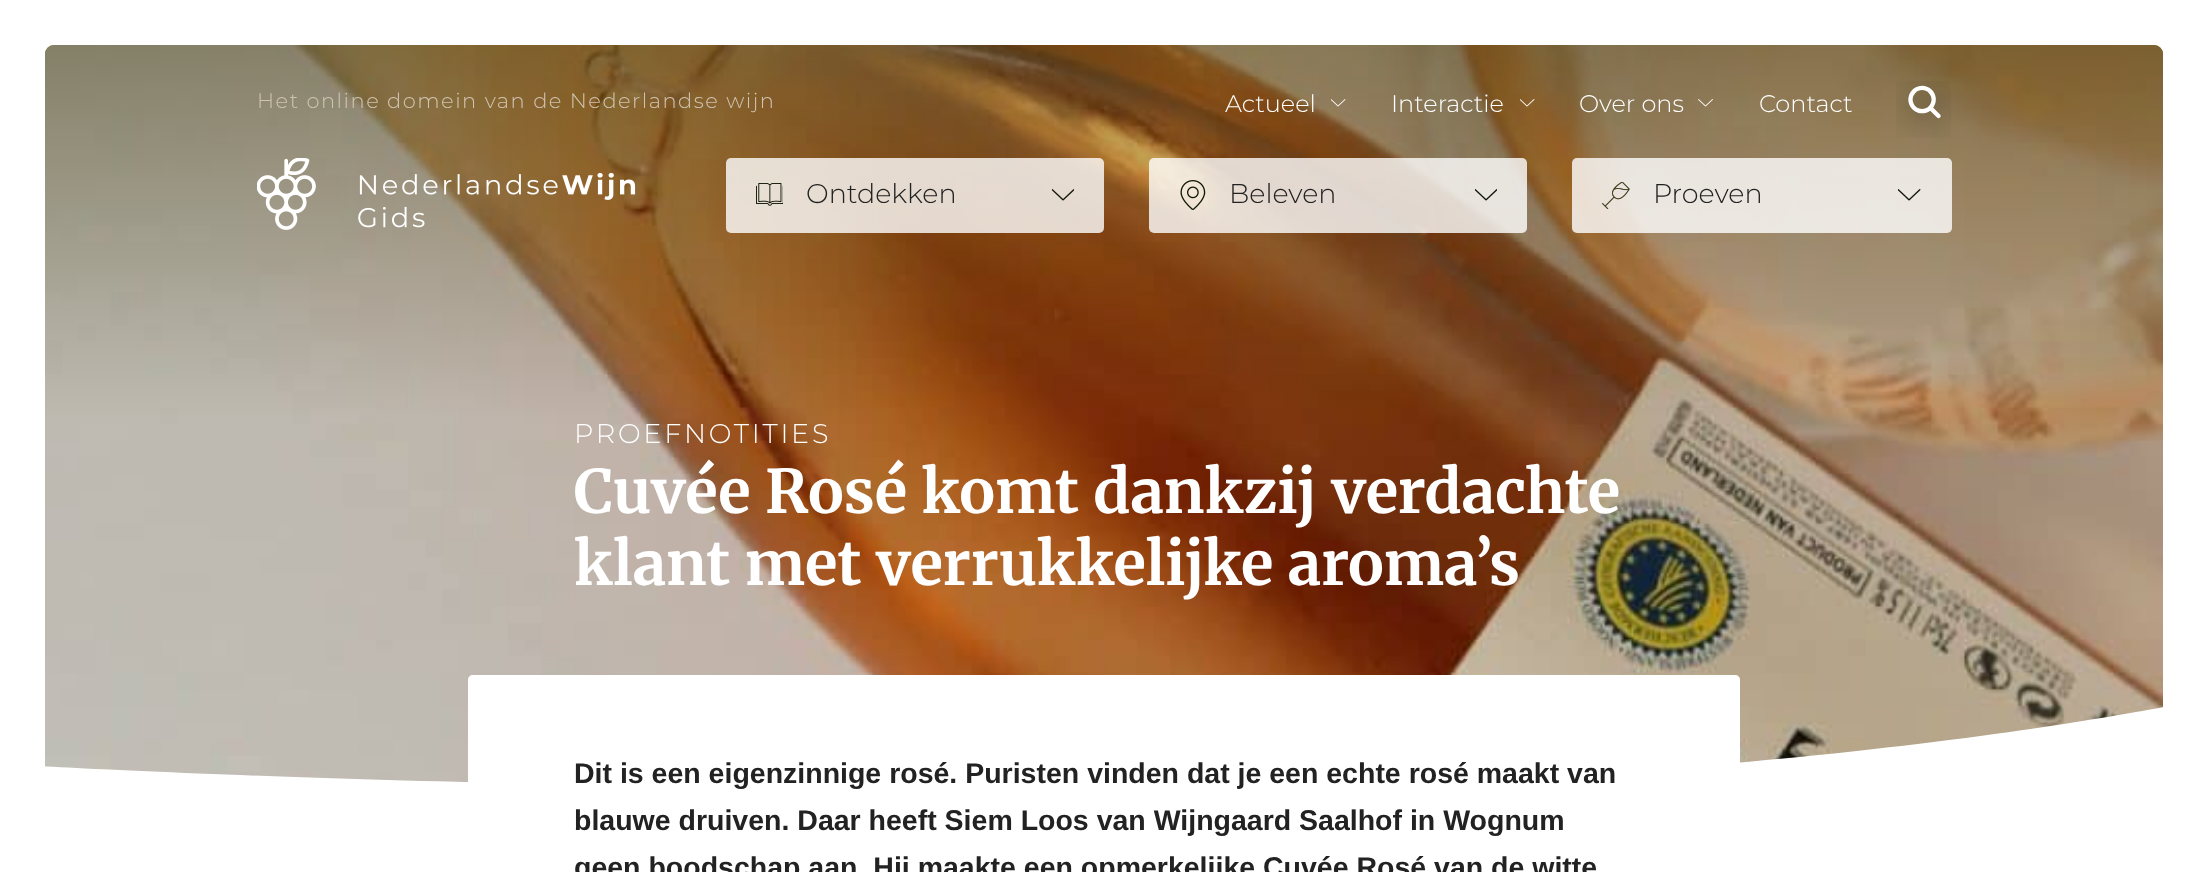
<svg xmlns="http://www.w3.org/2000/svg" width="2208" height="872">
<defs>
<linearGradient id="g1" gradientUnits="userSpaceOnUse" x1="1104" y1="45" x2="1104" y2="420"><stop offset="0" stop-color="#433e12" stop-opacity="0.45"/><stop offset="1" stop-color="#433e12" stop-opacity="0"/></linearGradient>
</defs>
<rect width="100%" height="100%" fill="#fff"/>
<rect x="45" y="45" width="2118" height="750" rx="9" fill="#73b000"/>
<image x="45" y="45" width="2118" height="738" href="media/12.png"/>
<path d="M54 45h2100c5 0 9 4 9 9v366h-2118v-366c0-5 4-9 9-9z" fill="url(#g1)"/>
<text x="257" y="108" style="font-family:Montserrat;font-size:21px;font-weight:300;letter-spacing:1.5px;fill:#cfc4b2">Het online domein van de Nederlandse wijn</text>
<text x="1225" y="112" style="font-family:Montserrat;font-size:24px;font-weight:300;fill:#fff">Actueel</text>
<image x="1331" y="99" width="15" height="8" href="media/1.png"/>
<text x="1391" y="112" style="font-family:Montserrat;font-size:24px;font-weight:300;fill:#fff">Interactie</text>
<image x="1520" y="99" width="15" height="8" href="media/2.png"/>
<text x="1579" y="112" style="font-family:Montserrat;font-size:24px;font-weight:300;fill:#fff">Over ons</text>
<image x="1698" y="99" width="15" height="8" href="media/3.png"/>
<text x="1759" y="112" style="font-family:Montserrat;font-size:24px;font-weight:300;fill:#fff">Contact</text>
<image x="1896" y="81" width="55" height="57" href="media/4.png"/>
<rect x="726" y="158" width="378" height="75" rx="5" fill="#ffffffcc"/>
<image x="756" y="183" width="27" height="23" href="media/5.png"/>
<text x="806" y="203" style="font-family:Montserrat;font-size:27px;font-weight:300;fill:#222">Ontdekken</text>
<image x="1052" y="189" width="22" height="12" href="media/6.png"/>
<rect x="1149" y="158" width="378" height="75" rx="5" fill="#ffffffcc"/>
<image x="1180" y="180" width="26" height="30" href="media/7.png"/>
<text x="1229" y="203" style="font-family:Montserrat;font-size:27px;font-weight:300;fill:#222">Beleven</text>
<image x="1475" y="189" width="22" height="12" href="media/8.png"/>
<rect x="1572" y="158" width="380" height="75" rx="5" fill="#ffffffcc"/>
<image x="1602" y="182" width="28" height="27" href="media/9.png"/>
<text x="1653" y="203" style="font-family:Montserrat;font-size:27px;font-weight:300;fill:#222">Proeven</text>
<image x="1898" y="189" width="23" height="12" href="media/10.png"/>
<image x="257" y="158" width="379" height="72" href="media/11.png"/>
<text x="574" y="443" style="font-family:Montserrat;font-size:27px;font-weight:300;letter-spacing:2.75px;fill:#fff">PROEFNOTITIES</text>
<text x="574" y="513" style="font-family:Merriweather;font-size:60px;font-weight:300;fill:#fff">Cuvée Rosé komt dankzij verdachte</text>
<text x="574" y="585" style="font-family:Merriweather;font-size:60px;font-weight:300;fill:#fff">klant met verrukkelijke aroma’s</text>
<path d="M4 797h2200v-98c0 0-402 90-1100 91c-697 0-1100-26-1100-26z" fill="#fff"/>
<path d="M473 675h1262c3 0 5 2 5 5v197h-1272v-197c0-3 2-5 5-5z" fill="#fff"/>
<text x="574" y="783" style="font-family:Liberation Sans;font-size:28.5px;font-weight:bold;fill:#222">Dit is een eigenzinnige rosé. Puristen vinden dat je een echte rosé maakt van</text>
<text x="574" y="830" style="font-family:Liberation Sans;font-size:28.5px;font-weight:bold;fill:#222">blauwe druiven. Daar heeft Siem Loos van Wijngaard Saalhof in Wognum</text>
<text x="574" y="877" style="font-family:Liberation Sans;font-size:28.5px;font-weight:bold;fill:#222">geen boodschap aan. Hij maakte een opmerkelijke Cuvée Rosé van de witte</text>
</svg>
